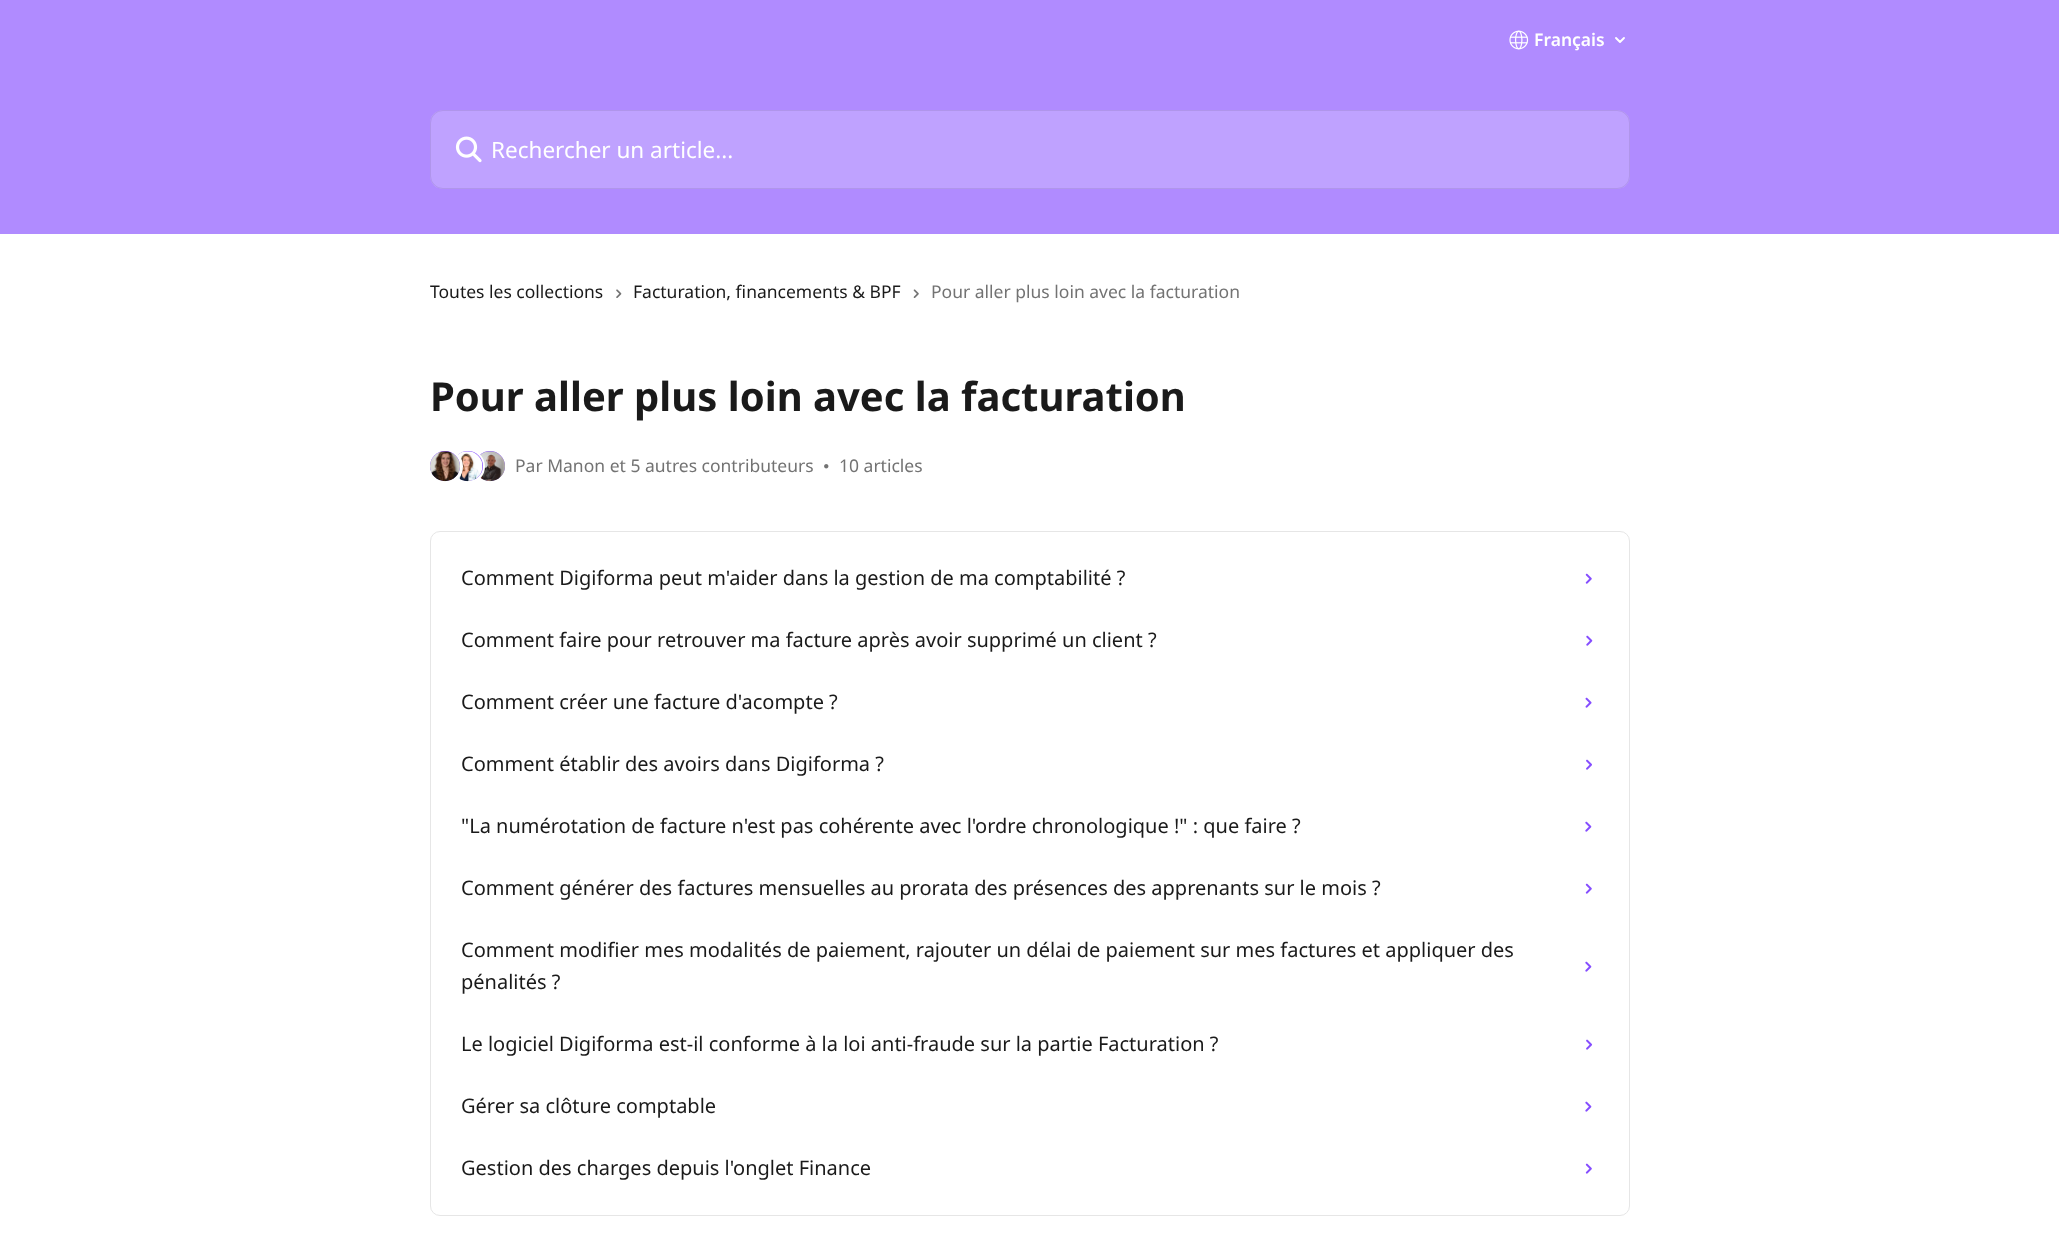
<svg xmlns="http://www.w3.org/2000/svg" width="2059" height="1237">
<rect width="100%" height="100%" fill="#fff"/>
<rect width="2059" height="234" fill="#b08bff"/>
<image x="1509" y="30" width="20" height="20" href="media/1.png"/>
<text x="1534" y="46" style="font-family:Noto Sans;font-size:17.5px;font-weight:600;fill:#fff">Français</text>
<path d="M1616 38l4 4l4-4" fill="none" stroke="#fff" stroke-width="1.9" stroke-linecap="round" stroke-linejoin="round"/>
<rect x="430" y="110" width="1200" height="79" rx="13" fill="#ffffff33"/>
<rect x="430.5" y="110.5" width="1199" height="78" rx="12.5" fill="none" stroke="#00000014"/>
<image x="455" y="136" width="27" height="27" href="media/2.png"/>
<text x="491" y="158" style="font-family:Noto Sans;font-size:22.5px;fill:#fff">Rechercher un article...</text>
<text x="430" y="298" style="font-family:Noto Sans;font-size:17.5px;fill:#1a1a1a">Toutes les collections</text>
<image x="616" y="289" width="6" height="9" href="media/3.png"/>
<text x="633" y="298" style="font-family:Noto Sans;font-size:17.5px;fill:#1a1a1a">Facturation, financements &amp; BPF</text>
<image x="913" y="289" width="6" height="9" href="media/4.png"/>
<text x="931" y="298" style="font-family:Noto Sans;font-size:17.5px;fill:#737373">Pour aller plus loin avec la facturation</text>
<text x="430" y="411" style="font-family:Noto Sans;font-size:40px;font-weight:bold;fill:#1a1a1a">Pour aller plus loin avec la facturation</text>
<circle cx="490" cy="466" r="15" fill="#854dff"/>
<image x="478" y="451" width="27" height="31" href="media/7.png"/>
<circle cx="467.5" cy="466.5" r="16" fill="none" stroke="#fff" stroke-width="3"/>
<circle cx="468" cy="466" r="15" fill="#854dff"/>
<image x="456" y="451" width="27" height="31" href="media/6.png"/>
<circle cx="445.5" cy="466.5" r="16" fill="none" stroke="#fff" stroke-width="3"/>
<circle cx="445" cy="466" r="15" fill="#854dff"/>
<image x="430" y="451" width="30" height="31" href="media/5.png"/>
<text x="515" y="472" style="font-family:Noto Sans;font-size:17.5px;fill:#737373">Par Manon et 5 autres contributeurs</text>
<image x="824" y="464" width="5" height="5" href="media/8.png"/>
<text x="839" y="472" style="font-family:Noto Sans;font-size:17.5px;fill:#737373">10 articles</text>
<rect x="430.5" y="531.5" width="1199" height="684" rx="9.5" fill="none" stroke="#e6e6e6"/>
<text x="461" y="585" style="font-family:Noto Sans;font-size:20px;fill:#1a1a1a">Comment Digiforma peut m'aider dans la gestion de ma comptabilité ?</text>
<image x="1585" y="573" width="7" height="11" href="media/9.png"/>
<text x="461" y="647" style="font-family:Noto Sans;font-size:20px;fill:#1a1a1a">Comment faire pour retrouver ma facture après avoir supprimé un client ?</text>
<image x="1586" y="635" width="7" height="11" href="media/10.png"/>
<text x="461" y="709" style="font-family:Noto Sans;font-size:20px;fill:#1a1a1a">Comment créer une facture d'acompte ?</text>
<image x="1585" y="697" width="7" height="11" href="media/11.png"/>
<text x="461" y="771" style="font-family:Noto Sans;font-size:20px;fill:#1a1a1a">Comment établir des avoirs dans Digiforma ?</text>
<image x="1586" y="759" width="6" height="11" href="media/12.png"/>
<text x="461" y="833" style="font-family:Noto Sans;font-size:20px;fill:#1a1a1a">"La numérotation de facture n'est pas cohérente avec l'ordre chronologique !" : que faire ?</text>
<image x="1585" y="821" width="7" height="11" href="media/13.png"/>
<text x="461" y="895" style="font-family:Noto Sans;font-size:20px;fill:#1a1a1a">Comment générer des factures mensuelles au prorata des présences des apprenants sur le mois ?</text>
<image x="1585" y="883" width="7" height="11" href="media/14.png"/>
<text x="461" y="957" style="font-family:Noto Sans;font-size:20px;fill:#1a1a1a">Comment modifier mes modalités de paiement, rajouter un délai de paiement sur mes factures et appliquer des</text>
<text x="461" y="989" style="font-family:Noto Sans;font-size:20px;fill:#1a1a1a">pénalités ?</text>
<image x="1585" y="961" width="7" height="11" href="media/15.png"/>
<text x="461" y="1051" style="font-family:Noto Sans;font-size:20px;fill:#1a1a1a">Le logiciel Digiforma est-il conforme à la loi anti-fraude sur la partie Facturation ?</text>
<image x="1586" y="1039" width="7" height="11" href="media/16.png"/>
<text x="461" y="1113" style="font-family:Noto Sans;font-size:20px;fill:#1a1a1a">Gérer sa clôture comptable</text>
<image x="1585" y="1101" width="7" height="11" href="media/17.png"/>
<text x="461" y="1175" style="font-family:Noto Sans;font-size:20px;fill:#1a1a1a">Gestion des charges depuis l'onglet Finance</text>
<image x="1585" y="1163" width="7" height="11" href="media/18.png"/>
</svg>
